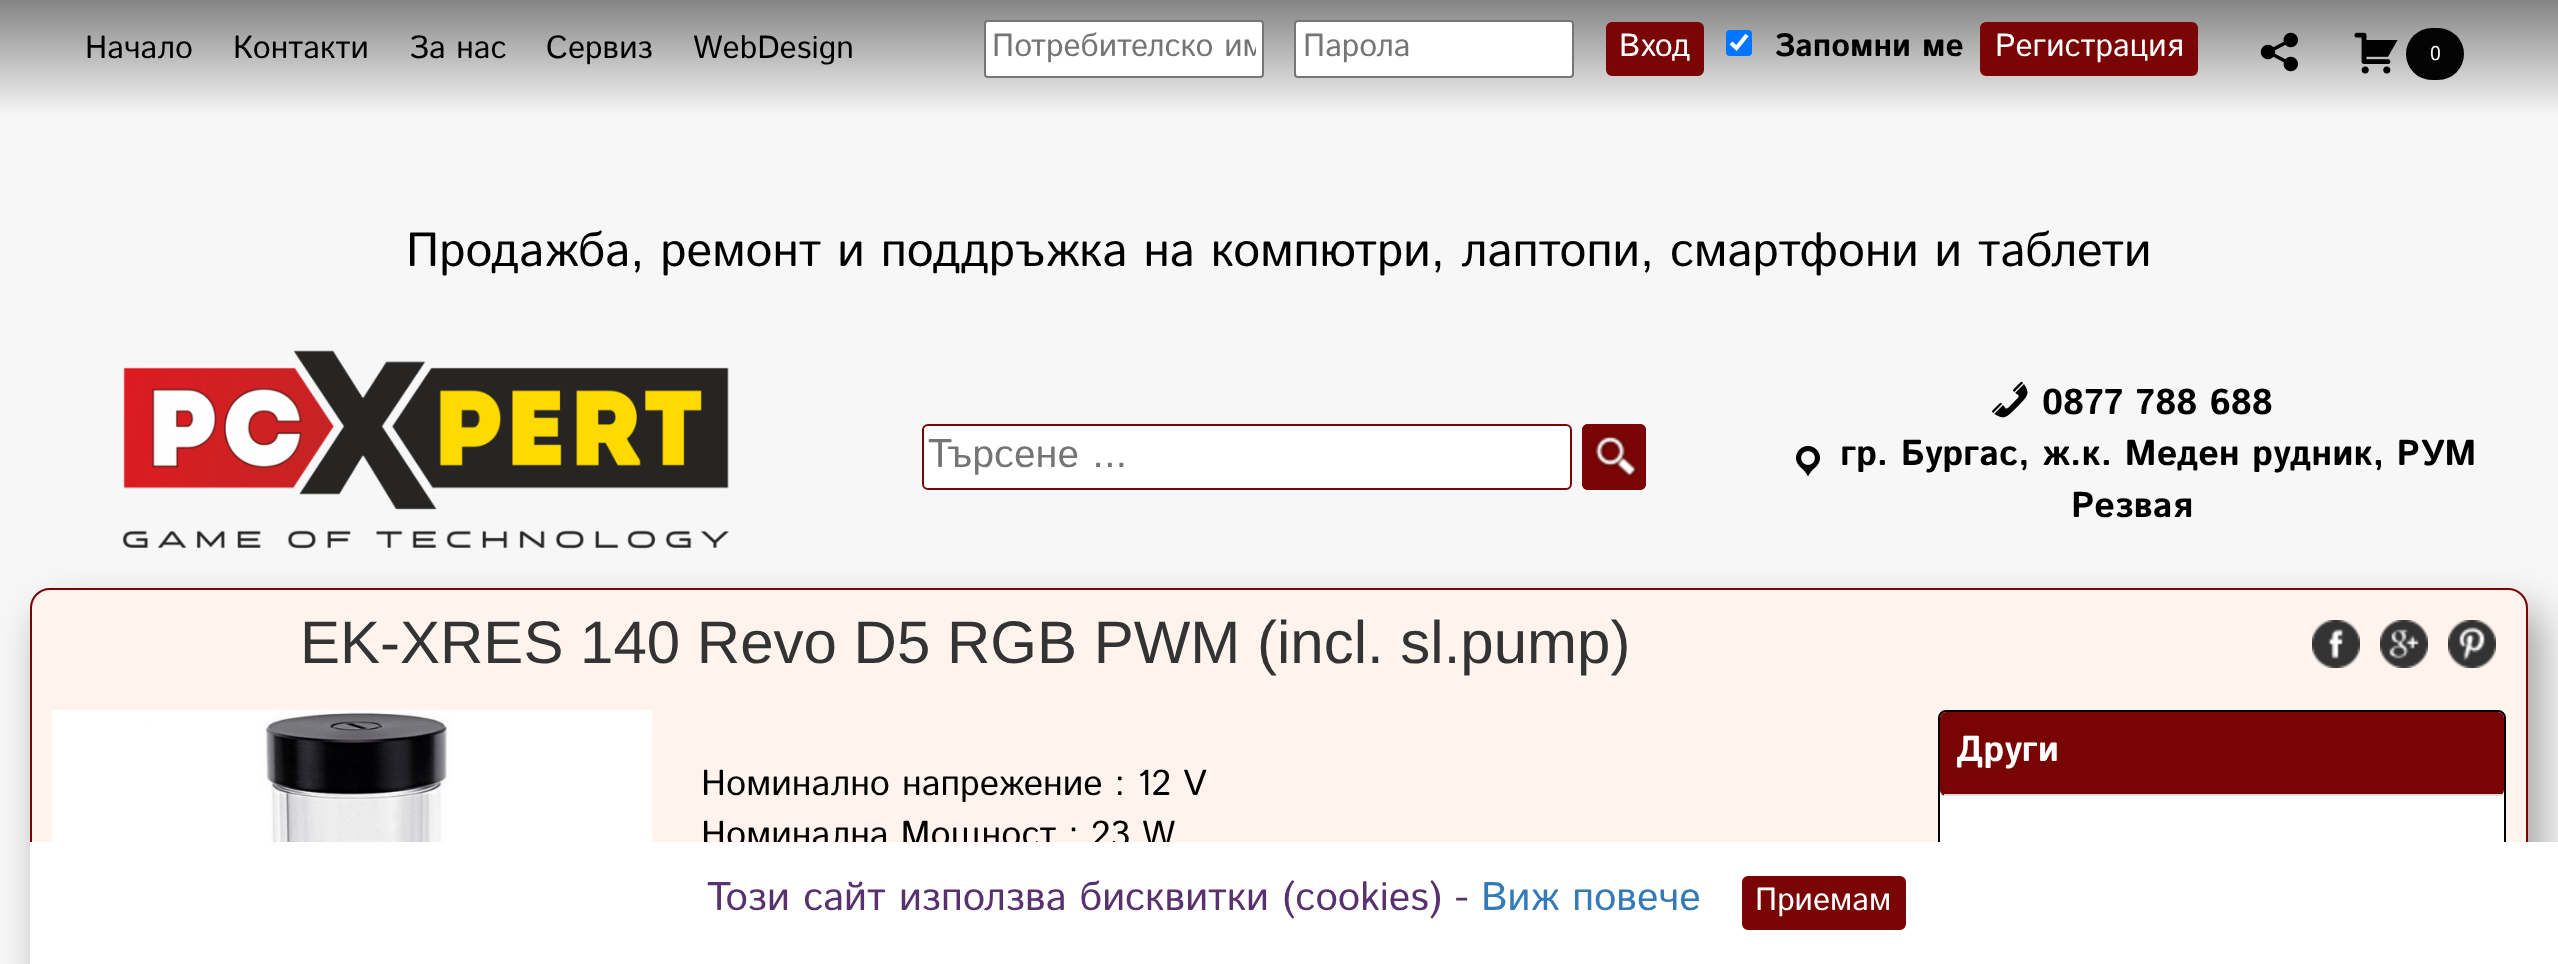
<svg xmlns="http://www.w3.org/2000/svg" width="2558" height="964">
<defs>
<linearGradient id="g1" gradientUnits="userSpaceOnUse" x1="1279" y1="0" x2="1279" y2="116"><stop offset="0" stop-color="#848484"/><stop offset="1" stop-color="#f7f7f7"/></linearGradient>
<clipPath id="clip1"><rect x="992" y="24" width="264" height="46"/></clipPath>
</defs>
<rect width="100%" height="100%" fill="#f7f7f7"/>
<rect width="2558" height="113" fill="url(#g1)"/>
<text x="85" y="58" style="font-family:Istok Web;font-size:32px;fill:#000">Начало</text>
<text x="233" y="58" style="font-family:Istok Web;font-size:32px;fill:#000">Контакти</text>
<text x="409" y="58" style="font-family:Istok Web;font-size:32px;fill:#000">За нас</text>
<text x="546" y="58" style="font-family:Istok Web;font-size:32px;fill:#000">Сервиз</text>
<text x="693" y="58" style="font-family:Istok Web;font-size:32px;fill:#000">WebDesign</text>
<rect x="985" y="21" width="278" height="56" rx="3" fill="#fff" stroke="#767676" stroke-width="2"/>
<g clip-path="url(#clip1)">
<text x="992" y="56" style="font-family:Istok Web;font-size:32px;fill:#757575">Потребителско им</text>
</g>
<rect x="1295" y="21" width="278" height="56" rx="3" fill="#fff" stroke="#767676" stroke-width="2"/>
<text x="1303" y="56" style="font-family:Istok Web;font-size:32px;fill:#757575">Парола</text>
<rect x="1607" y="23" width="96" height="52" rx="5" fill="#790505" stroke="#790505" stroke-width="2"/>
<text x="1619" y="56" style="font-family:Istok Web;font-size:32px;fill:#fff">Вход</text>
<rect x="1726" y="30" width="26" height="26" rx="4" fill="#0075ff"/>
<path d="M1731 43l5.5 5l10.5-13" fill="none" stroke="#fff" stroke-width="4.2"/>
<text x="1774" y="56" style="font-family:Istok Web;font-size:32px;font-weight:bold;fill:#000">Запомни ме</text>
<rect x="1981" y="23" width="216" height="52" rx="5" fill="#790505" stroke="#790505" stroke-width="2"/>
<text x="1995" y="56" style="font-family:Istok Web;font-size:32px;fill:#fff">Регистрация</text>
<image x="2260" y="32" width="38" height="40" href="media/1.png"/>
<image x="2354" y="32" width="44" height="42" href="media/2.png"/>
<rect x="2406" y="28" width="58" height="52" rx="26" fill="#030303"/>
<text x="2430" y="60" style="font-family:Istok Web;font-size:20px;fill:#f7f7f7">0</text>
<text x="406" y="266" style="font-family:Istok Web;font-size:48px;fill:#000">Продажба, ремонт и поддръжка на компютри, лаптопи, смартфони и таблети</text>
<image x="122" y="350" width="608" height="199" href="media/3.png"/>
<rect x="923" y="425" width="648" height="64" rx="5" fill="#fff" stroke="#790505" stroke-width="2"/>
<text x="928" y="467" style="font-family:Istok Web;font-size:40px;fill:#757575">Търсене ...</text>
<rect x="1582" y="424" width="64" height="66" rx="6" fill="#790505"/>
<image x="1594" y="435" width="43" height="42" href="media/4.png"/>
<rect x="1583" y="425" width="62" height="64" rx="5" fill="none" stroke="#790505" stroke-width="2"/>
<image x="1992" y="381" width="36" height="37" href="media/5.png"/>
<text x="2042" y="414" style="font-family:Istok Web;font-size:36px;font-weight:bold;fill:#000">0877 788 688</text>
<image x="1796" y="446" width="24" height="31" href="media/6.png"/>
<text x="1840" y="465" style="font-family:Istok Web;font-size:36px;font-weight:bold;fill:#000">гр. Бургас, ж.к. Меден рудник, РУМ</text>
<text x="2071" y="517" style="font-family:Istok Web;font-size:36px;font-weight:bold;fill:#000">Резвая</text>
<rect x="42" y="610" width="2498" height="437" rx="20" fill="#00000159" filter="blur(21px)"/>
<rect x="31" y="589" width="2496" height="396" rx="19" fill="#fff4ed" stroke="#790404" stroke-width="2"/>
<text x="300" y="663" style="font-family:Liberation Sans;font-size:60px;fill:#333">EK-XRES 140 Revo D5 RGB PWM (incl. sl.pump)</text>
<image x="2312" y="620" width="48" height="48" href="media/7.png"/>
<image x="2380" y="620" width="48" height="48" href="media/8.png"/>
<image x="2448" y="620" width="48" height="48" href="media/9.png"/>
<image x="52" y="710" width="600" height="132" href="media/10.png"/>
<rect x="1939" y="711" width="566" height="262" rx="7" fill="#fff" stroke="#000" stroke-width="2"/>
<rect x="1940" y="712" width="564" height="84" rx="6" fill="#790404"/>
<rect x="1944" y="794" width="558" height="2" fill="#ddd"/>
<text x="1956" y="761" style="font-family:Istok Web;font-size:36px;font-weight:bold;fill:#fff">Други</text>
<text x="701" y="795" style="font-family:Istok Web;font-size:36px;fill:#000">Номинално напрежение : 12 V</text>
<text x="701" y="846" style="font-family:Istok Web;font-size:36px;fill:#000">Номинална Мощност : 23 W</text>
<rect x="30" y="842" width="2528" height="122" fill="#fff"/>
<text x="707" y="910" style="font-family:Istok Web;font-size:40px;fill:#59316f">Този сайт използва бисквитки (cookies) -</text>
<text x="1481" y="910" style="font-family:Istok Web;font-size:40px;fill:#337ab7">Виж повече</text>
<rect x="1743" y="877" width="162" height="52" rx="5" fill="#790505" stroke="#790505" stroke-width="2"/>
<text x="1755" y="910" style="font-family:Istok Web;font-size:32px;fill:#fff">Приемам</text>
</svg>
